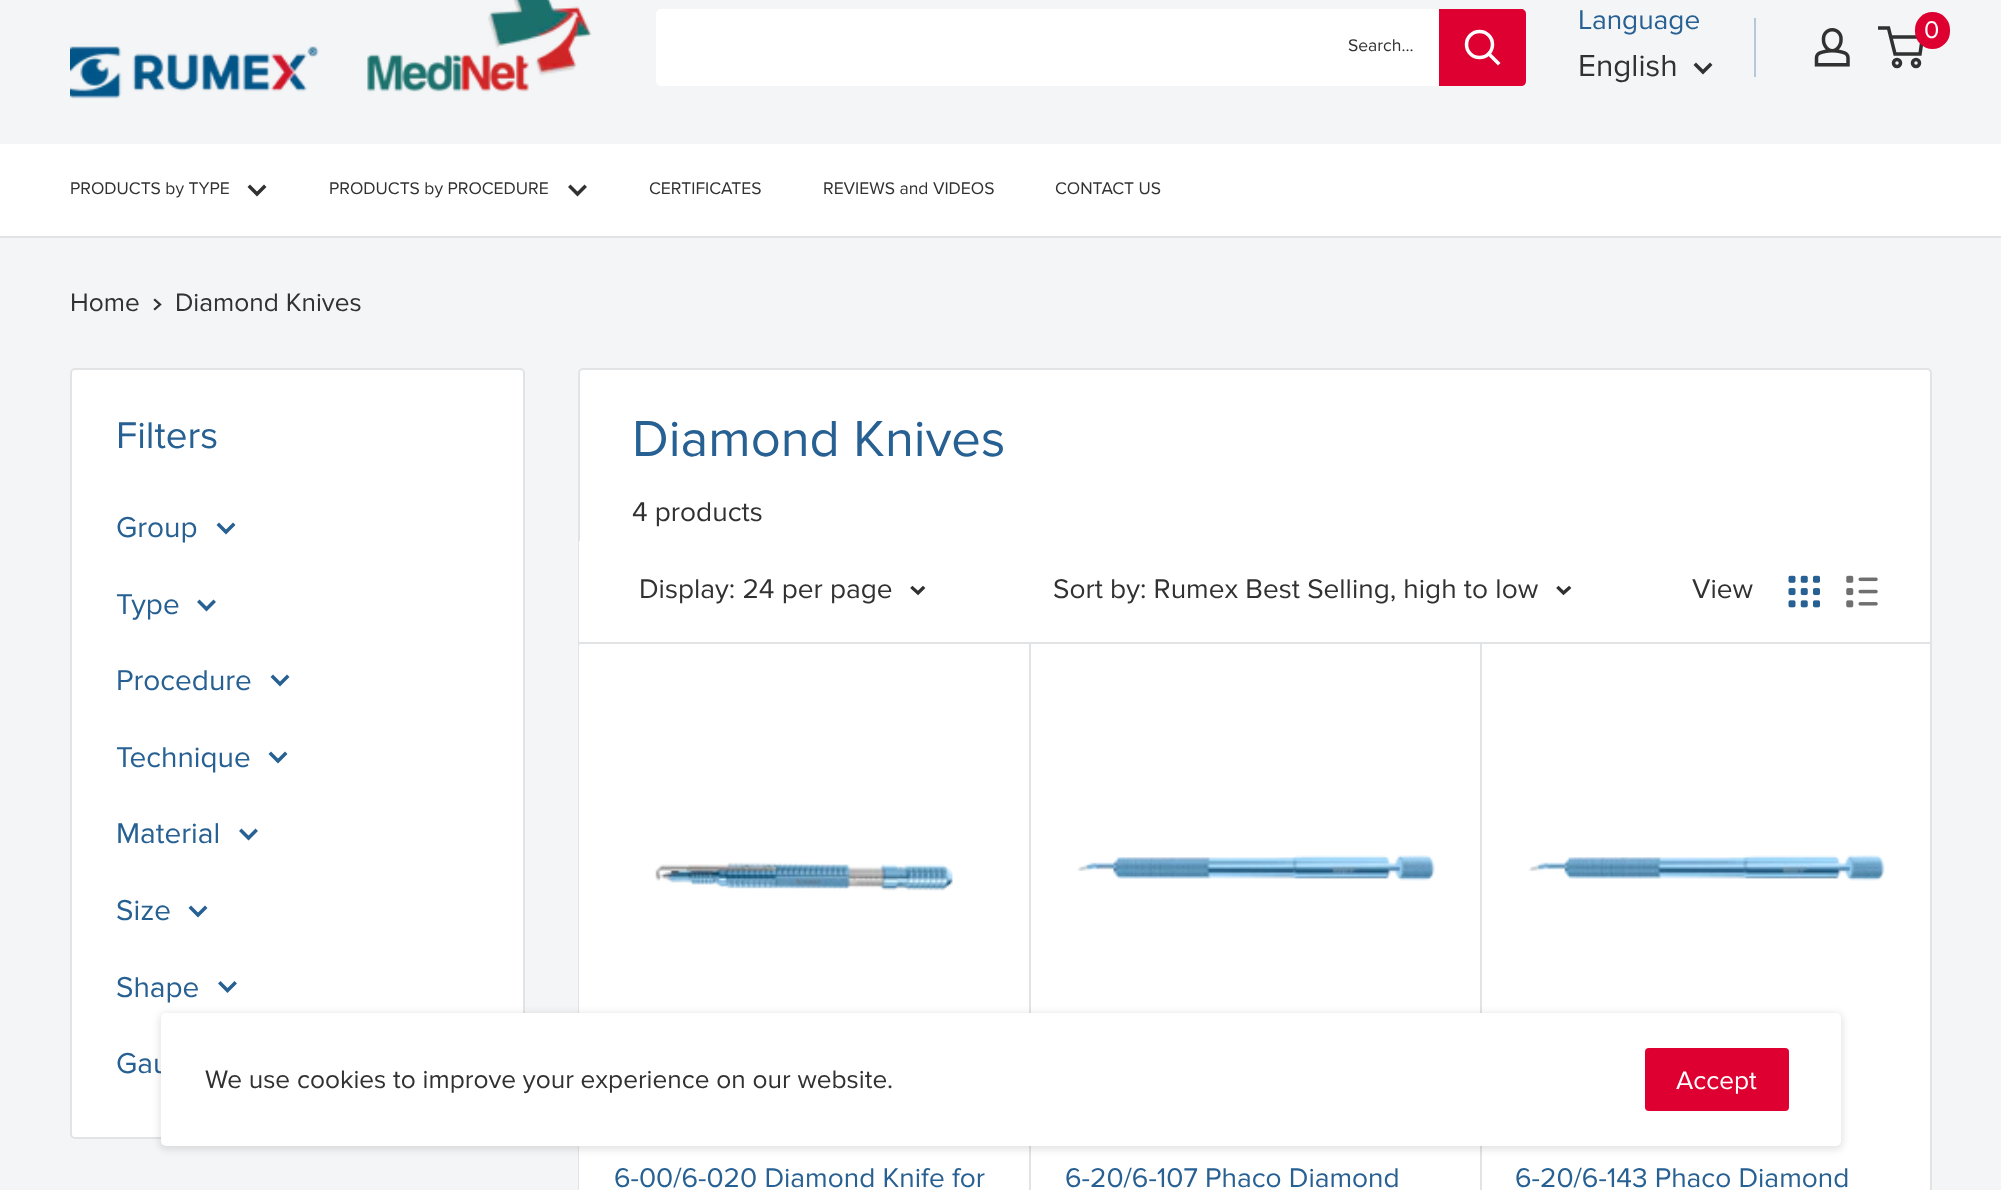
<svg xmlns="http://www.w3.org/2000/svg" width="2001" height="1190">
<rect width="100%" height="100%" fill="#f3f5f6"/>
<image x="70" y="0" width="522" height="99" href="media/1.png"/>
<rect x="656" y="9" width="870" height="77" rx="5" fill="#fff"/>
<text x="1348" y="51" style="font-family:Proxima Nova;font-size:17.5px;fill:#313131">Search...</text>
<path d="M1439 9h82c3 0 5 2 5 5v67c0 3-2 5-5 5h-82z" fill="#dd0031"/>
<path d="M1498 63l-9-9" fill="none" stroke="#fff" stroke-width="3.5" stroke-linecap="square"/>
<circle cx="1479.5" cy="44.5" r="13" fill="none" stroke="#fff" stroke-width="3.5"/>
<text x="1578" y="29" style="font-family:Proxima Nova;font-size:28px;fill:#276092">Language</text>
<rect x="1754" y="18" width="2" height="59" fill="#b6c8d8"/>
<text x="1578" y="76" style="font-family:Proxima Nova;font-size:31.5px;fill:#313131">English</text>
<path d="M1710 65l-7 7l-7-7" fill="none" stroke="#313131" stroke-width="3.5" stroke-linecap="square"/>
<image x="1814" y="28" width="36" height="39" href="media/2.png"/>
<circle cx="1897" cy="63" r="3.5" fill="none" stroke="#313131" stroke-width="3.5"/>
<circle cx="1916" cy="63" r="3.5" fill="none" stroke="#313131" stroke-width="3.5"/>
<path d="M1890.5 37h32l-2.5 17h-25l-6.5-26h-10.5" fill="none" stroke="#313131" stroke-width="3.5"/>
<rect x="1915" y="12" width="35" height="37" rx="17.5" fill="#dd0031"/>
<text x="1924" y="38" style="font-family:Proxima Nova;font-size:25px;fill:#fff">0</text>
<rect y="144" width="2001" height="92" fill="#fff"/>
<rect y="236" width="2001" height="2" fill="#e1e3e4"/>
<text x="70" y="194" style="font-family:Proxima Nova;font-size:17.5px;fill:#313131">PRODUCTS by TYPE</text>
<path d="M264 187l-7 7l-7-7" fill="none" stroke="#313131" stroke-width="3.5" stroke-linecap="square"/>
<text x="329" y="194" style="font-family:Proxima Nova;font-size:17.5px;fill:#313131">PRODUCTS by PROCEDURE</text>
<path d="M584.5 187l-7 7l-7-7" fill="none" stroke="#313131" stroke-width="3.5" stroke-linecap="square"/>
<text x="649" y="194" style="font-family:Proxima Nova;font-size:17.5px;fill:#313131">CERTIFICATES</text>
<text x="823" y="194" style="font-family:Proxima Nova;font-size:17.5px;fill:#313131">REVIEWS and VIDEOS</text>
<text x="1055" y="194" style="font-family:Proxima Nova;font-size:17.5px;fill:#313131">CONTACT US</text>
<text x="70" y="311" style="font-family:Proxima Nova;font-size:26.25px;fill:#313131">Home</text>
<path d="M155 300l5 4.5l-5 4.5" fill="none" stroke="#313131" stroke-width="2.3" stroke-linecap="square"/>
<text x="175" y="311" style="font-family:Proxima Nova;font-size:26.25px;fill:#313131">Diamond Knives</text>
<rect x="71" y="369" width="453" height="769" rx="4" fill="#fff" stroke="#e1e3e4" stroke-width="2"/>
<text x="116" y="448" style="font-family:Proxima Nova;font-size:38.5px;fill:#276092">Filters</text>
<text x="116" y="537" style="font-family:Proxima Nova;font-size:29.75px;fill:#276092">Group</text>
<path d="M233 525l-7 7l-7-7" fill="none" stroke="#276092" stroke-width="3.5" stroke-linecap="square"/>
<text x="116" y="614" style="font-family:Proxima Nova;font-size:29.75px;fill:#276092">Type</text>
<path d="M213.5 602l-7 7l-7-7" fill="none" stroke="#276092" stroke-width="3.5" stroke-linecap="square"/>
<text x="116" y="690" style="font-family:Proxima Nova;font-size:29.75px;fill:#276092">Procedure</text>
<path d="M287 677l-7 7l-7-7" fill="none" stroke="#276092" stroke-width="3.5" stroke-linecap="square"/>
<text x="116" y="767" style="font-family:Proxima Nova;font-size:29.75px;fill:#276092">Technique</text>
<path d="M285 754l-7 7l-7-7" fill="none" stroke="#276092" stroke-width="3.5" stroke-linecap="square"/>
<text x="116" y="843" style="font-family:Proxima Nova;font-size:29.75px;fill:#276092">Material</text>
<path d="M255.5 831l-7 7l-7-7" fill="none" stroke="#276092" stroke-width="3.5" stroke-linecap="square"/>
<text x="116" y="920" style="font-family:Proxima Nova;font-size:29.75px;fill:#276092">Size</text>
<path d="M205 908l-7 7l-7-7" fill="none" stroke="#276092" stroke-width="3.5" stroke-linecap="square"/>
<text x="116" y="997" style="font-family:Proxima Nova;font-size:29.75px;fill:#276092">Shape</text>
<path d="M234.5 983.5l-7 7l-7-7" fill="none" stroke="#276092" stroke-width="3.5" stroke-linecap="square"/>
<text x="116" y="1073" style="font-family:Proxima Nova;font-size:29.75px;fill:#276092">Gau</text>
<rect x="579" y="369" width="1352" height="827" rx="4" fill="#fff" stroke="#e1e3e4" stroke-width="2"/>
<text x="632" y="456" style="font-family:Proxima Nova;font-size:52.5px;fill:#276092">Diamond Knives</text>
<text x="632" y="521" style="font-family:Proxima Nova;font-size:28px;fill:#313131">4 products</text>
<rect x="579" y="642" width="1351" height="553" rx="5" fill="#fff"/>
<path d="M584 642h445v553h-450v-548c0-3 2-5 5-5z" fill="#fff"/>
<path d="M584 642h447v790h-450h448v-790h-447z" fill="#e1e3e4"/>
<path d="M1031 642h451v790h-451h449v-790z" fill="#e1e3e4"/>
<path d="M579 543v101h1351v-2h-1351z" fill="#e1e3e4"/>
<rect x="579" y="541" width="1" height="101" fill="#fff"/>
<text x="639" y="598" style="font-family:Proxima Nova;font-size:28px;fill:#313131">Display: 24 per page</text>
<path d="M923 588l-5 5l-5.5-5" fill="none" stroke="#313131" stroke-width="3.3" stroke-linecap="square"/>
<text x="1053" y="598" style="font-family:Proxima Nova;font-size:28px;fill:#313131">Sort by: Rumex Best Selling, high to low</text>
<path d="M1569 588l-5.5 5l-5-5" fill="none" stroke="#313131" stroke-width="3.3" stroke-linecap="square"/>
<text x="1692" y="598" style="font-family:Proxima Nova;font-size:28px;fill:#313131">View</text>
<image x="1788" y="575" width="32" height="33" href="media/3.png"/>
<image x="1846" y="575" width="32" height="33" href="media/4.png"/>
<image x="654" y="862" width="299" height="29" href="media/5.png"/>
<text x="614" y="1187" style="font-family:Proxima Nova;font-size:28px;fill:#276092">6-00/6-020 Diamond Knife for</text>
<image x="1077" y="855" width="358" height="26" href="media/6.png"/>
<text x="1065" y="1187" style="font-family:Proxima Nova;font-size:28px;fill:#276092">6-20/6-107 Phaco Diamond</text>
<image x="1528" y="855" width="357" height="26" href="media/7.png"/>
<text x="1515" y="1187" style="font-family:Proxima Nova;font-size:28px;fill:#276092">6-20/6-143 Phaco Diamond</text>
<rect x="159" y="1013" width="1684" height="137" rx="7" fill="#0000001a" filter="blur(3.5px)"/>
<rect x="161" y="1013" width="1680" height="133" rx="5" fill="#fff"/>
<text x="205" y="1088" style="font-family:Proxima Nova;font-size:26.25px;fill:#313131">We use cookies to improve your experience on our website.</text>
<rect x="1645" y="1048" width="144" height="63" rx="4" fill="#dd0031"/>
<text x="1676" y="1089" style="font-family:Proxima Nova;font-size:26.25px;fill:#fff">Accept</text>
</svg>
